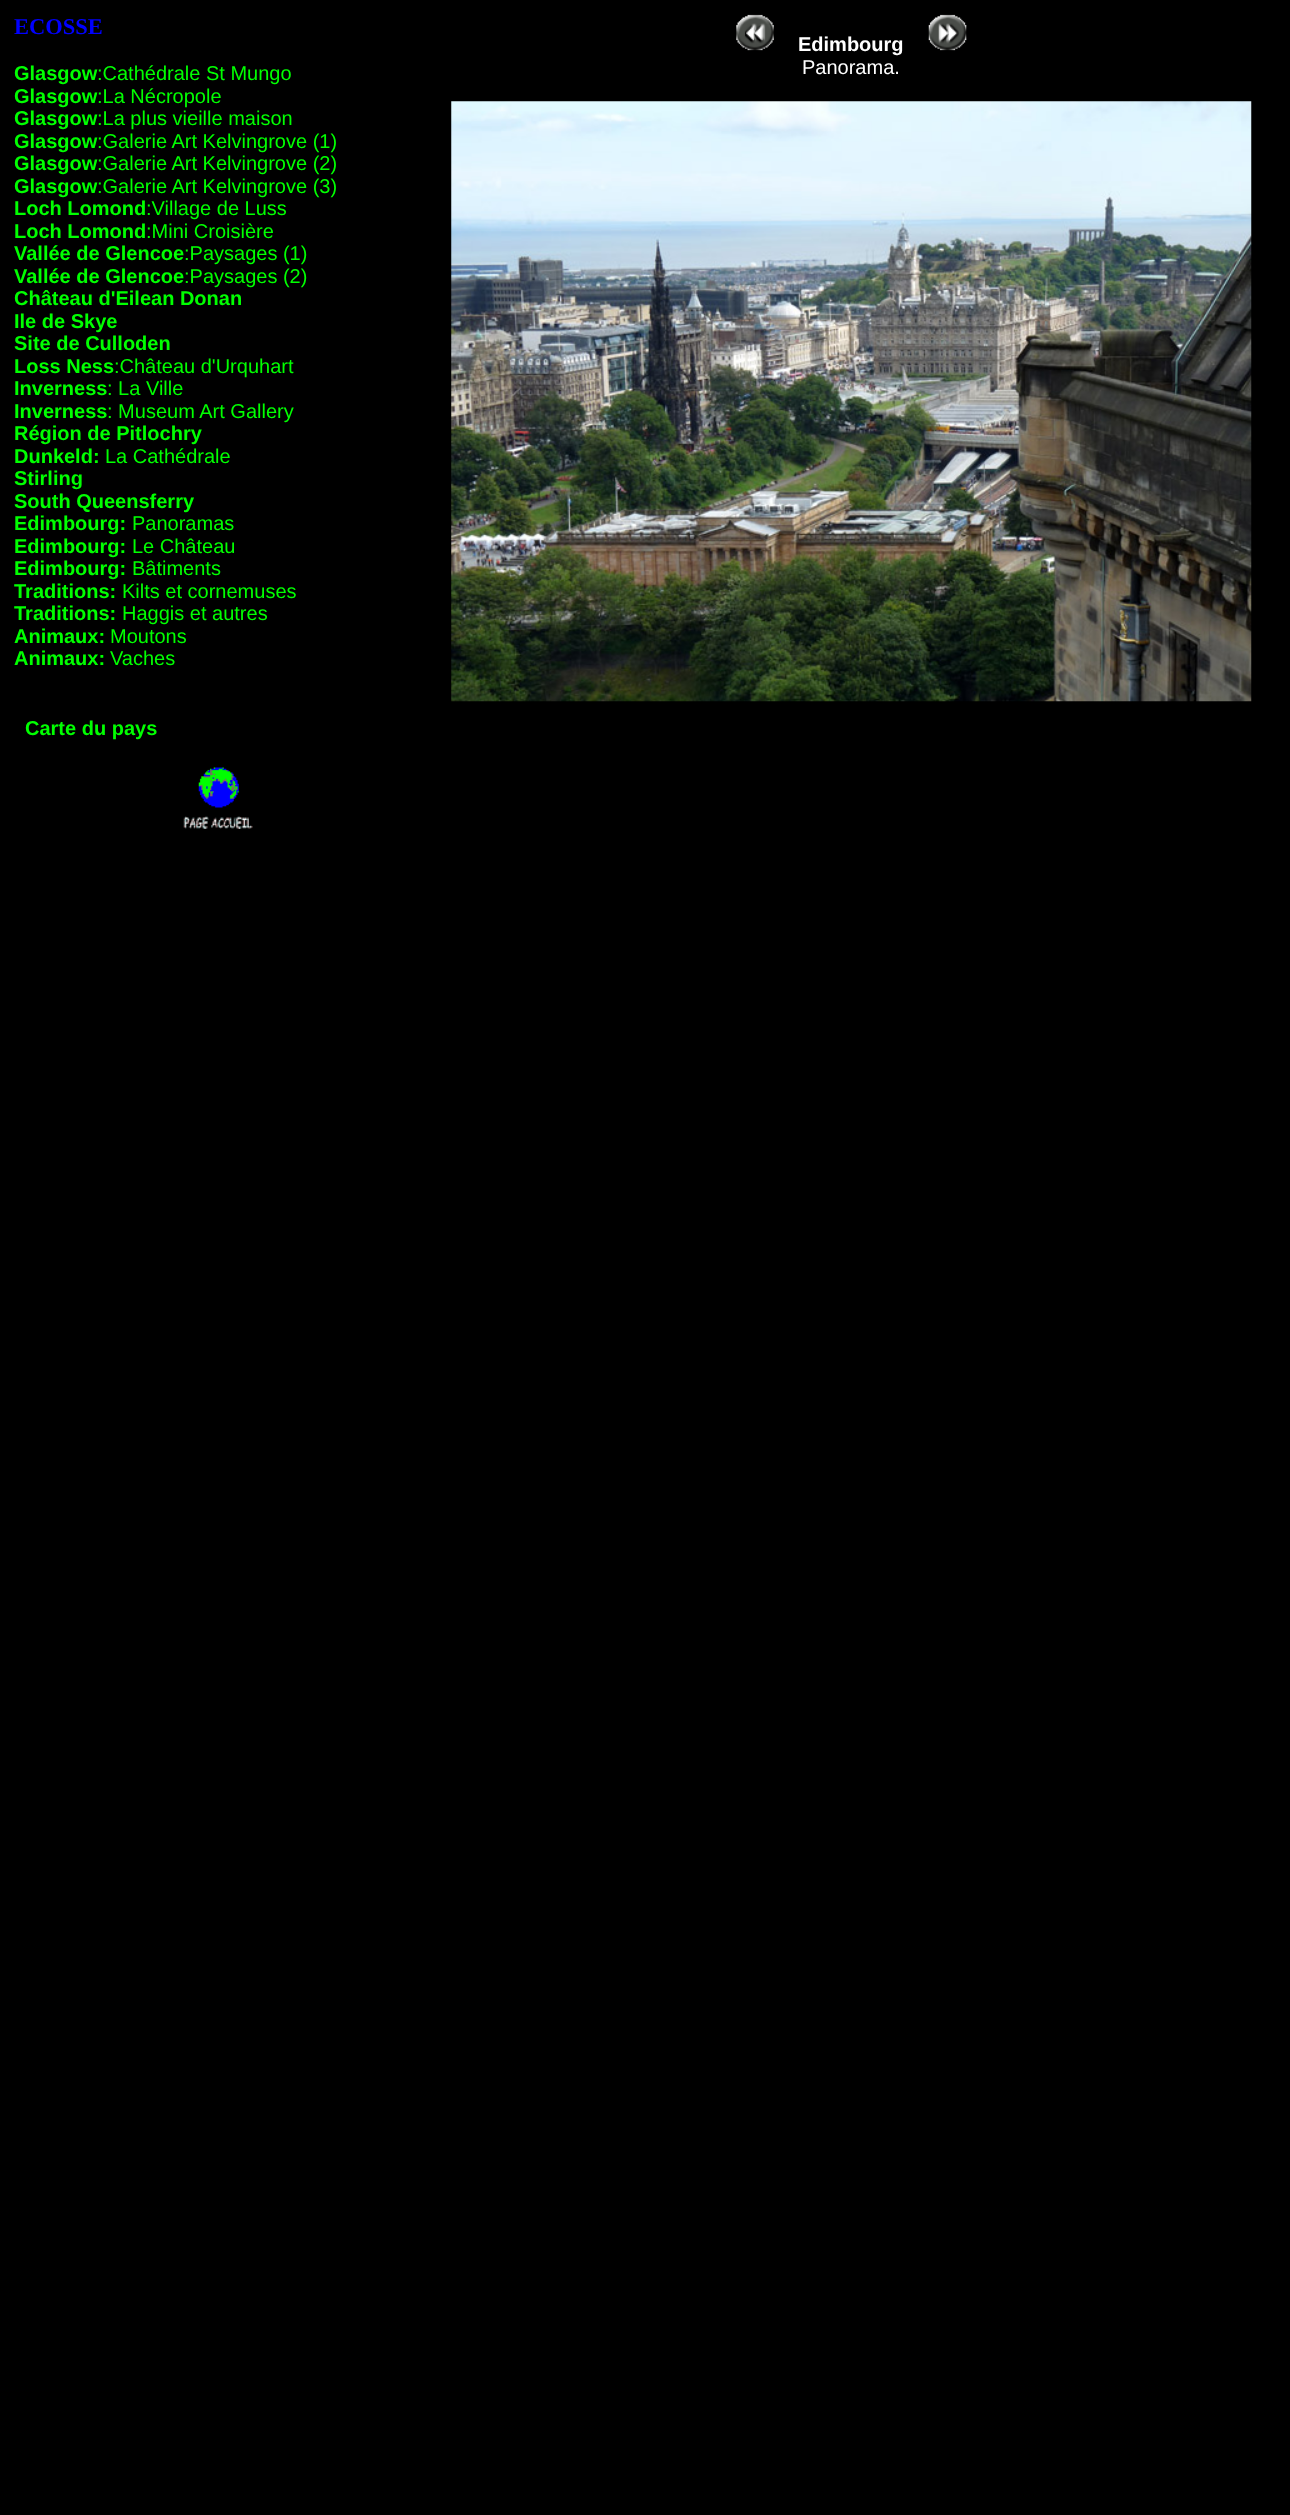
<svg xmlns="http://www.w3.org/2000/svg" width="1290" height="2515">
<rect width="100%" height="100%" fill="#000"/>
<text x="14" y="34" style="font-family:Liberation Serif;font-size:22.5px;font-weight:bold;fill:#00f">ECOSSE</text>
<text x="14" y="80" style="font-family:Liberation Sans;font-size:20px;font-weight:bold;fill:#0f0">Glasgow</text>
<text x="97" y="80" style="font-family:Liberation Sans;font-size:20px;fill:#0f0">:Cathédrale St Mungo</text>
<text x="14" y="103" style="font-family:Liberation Sans;font-size:20px;font-weight:bold;fill:#0f0">Glasgow</text>
<text x="97" y="103" style="font-family:Liberation Sans;font-size:20px;fill:#0f0">:La Nécropole</text>
<text x="14" y="125" style="font-family:Liberation Sans;font-size:20px;font-weight:bold;fill:#0f0">Glasgow</text>
<text x="97" y="125" style="font-family:Liberation Sans;font-size:20px;fill:#0f0">:La plus vieille maison</text>
<text x="14" y="148" style="font-family:Liberation Sans;font-size:20px;font-weight:bold;fill:#0f0">Glasgow</text>
<text x="97" y="148" style="font-family:Liberation Sans;font-size:20px;fill:#0f0">:Galerie Art Kelvingrove (1)</text>
<text x="14" y="170" style="font-family:Liberation Sans;font-size:20px;font-weight:bold;fill:#0f0">Glasgow</text>
<text x="97" y="170" style="font-family:Liberation Sans;font-size:20px;fill:#0f0">:Galerie Art Kelvingrove (2)</text>
<text x="14" y="193" style="font-family:Liberation Sans;font-size:20px;font-weight:bold;fill:#0f0">Glasgow</text>
<text x="97" y="193" style="font-family:Liberation Sans;font-size:20px;fill:#0f0">:Galerie Art Kelvingrove (3)</text>
<text x="14" y="215" style="font-family:Liberation Sans;font-size:20px;font-weight:bold;fill:#0f0">Loch Lomond</text>
<text x="146" y="215" style="font-family:Liberation Sans;font-size:20px;fill:#0f0">:Village de Luss</text>
<text x="14" y="238" style="font-family:Liberation Sans;font-size:20px;font-weight:bold;fill:#0f0">Loch Lomond</text>
<text x="146" y="238" style="font-family:Liberation Sans;font-size:20px;fill:#0f0">:Mini Croisière</text>
<text x="14" y="260" style="font-family:Liberation Sans;font-size:20px;font-weight:bold;fill:#0f0">Vallée de Glencoe</text>
<text x="184" y="260" style="font-family:Liberation Sans;font-size:20px;fill:#0f0">:Paysages (1)</text>
<text x="14" y="283" style="font-family:Liberation Sans;font-size:20px;font-weight:bold;fill:#0f0">Vallée de Glencoe</text>
<text x="184" y="283" style="font-family:Liberation Sans;font-size:20px;fill:#0f0">:Paysages (2)</text>
<text x="14" y="305" style="font-family:Liberation Sans;font-size:20px;font-weight:bold;fill:#0f0">Château d'Eilean Donan</text>
<text x="14" y="328" style="font-family:Liberation Sans;font-size:20px;font-weight:bold;fill:#0f0">Ile de Skye</text>
<text x="14" y="350" style="font-family:Liberation Sans;font-size:20px;font-weight:bold;fill:#0f0">Site de Culloden</text>
<text x="14" y="373" style="font-family:Liberation Sans;font-size:20px;font-weight:bold;fill:#0f0">Loss Ness</text>
<text x="114" y="373" style="font-family:Liberation Sans;font-size:20px;fill:#0f0">:Château d'Urquhart</text>
<text x="14" y="395" style="font-family:Liberation Sans;font-size:20px;font-weight:bold;fill:#0f0">Inverness</text>
<text x="107" y="395" style="font-family:Liberation Sans;font-size:20px;fill:#0f0">: La Ville</text>
<text x="14" y="418" style="font-family:Liberation Sans;font-size:20px;font-weight:bold;fill:#0f0">Inverness</text>
<text x="107" y="418" style="font-family:Liberation Sans;font-size:20px;fill:#0f0">: Museum Art Gallery</text>
<text x="14" y="440" style="font-family:Liberation Sans;font-size:20px;font-weight:bold;fill:#0f0">Région de Pitlochry</text>
<text x="14" y="463" style="font-family:Liberation Sans;font-size:20px;font-weight:bold;fill:#0f0">Dunkeld:</text>
<text x="105" y="463" style="font-family:Liberation Sans;font-size:20px;fill:#0f0">La Cathédrale</text>
<text x="14" y="485" style="font-family:Liberation Sans;font-size:20px;font-weight:bold;fill:#0f0">Stirling</text>
<text x="14" y="508" style="font-family:Liberation Sans;font-size:20px;font-weight:bold;fill:#0f0">South Queensferry</text>
<text x="14" y="530" style="font-family:Liberation Sans;font-size:20px;font-weight:bold;fill:#0f0">Edimbourg:</text>
<text x="132" y="530" style="font-family:Liberation Sans;font-size:20px;fill:#0f0">Panoramas</text>
<text x="14" y="553" style="font-family:Liberation Sans;font-size:20px;font-weight:bold;fill:#0f0">Edimbourg:</text>
<text x="132" y="553" style="font-family:Liberation Sans;font-size:20px;fill:#0f0">Le Château</text>
<text x="14" y="575" style="font-family:Liberation Sans;font-size:20px;font-weight:bold;fill:#0f0">Edimbourg:</text>
<text x="132" y="575" style="font-family:Liberation Sans;font-size:20px;fill:#0f0">Bâtiments</text>
<text x="14" y="598" style="font-family:Liberation Sans;font-size:20px;font-weight:bold;fill:#0f0">Traditions:</text>
<text x="122" y="598" style="font-family:Liberation Sans;font-size:20px;fill:#0f0">Kilts et cornemuses</text>
<text x="14" y="620" style="font-family:Liberation Sans;font-size:20px;font-weight:bold;fill:#0f0">Traditions:</text>
<text x="122" y="620" style="font-family:Liberation Sans;font-size:20px;fill:#0f0">Haggis et autres</text>
<text x="14" y="643" style="font-family:Liberation Sans;font-size:20px;font-weight:bold;fill:#0f0">Animaux:</text>
<text x="110" y="643" style="font-family:Liberation Sans;font-size:20px;fill:#0f0">Moutons</text>
<text x="14" y="665" style="font-family:Liberation Sans;font-size:20px;font-weight:bold;fill:#0f0">Animaux:</text>
<text x="110" y="665" style="font-family:Liberation Sans;font-size:20px;fill:#0f0">Vaches</text>
<image x="736" y="14" width="38" height="37" href="media/1.png"/>
<text x="798" y="51" style="font-family:Liberation Sans;font-size:20px;font-weight:bold;fill:#fff">Edimbourg</text>
<image x="928" y="14" width="39" height="37" href="media/2.png"/>
<text x="802" y="74" style="font-family:Liberation Sans;font-size:20px;fill:#fff">Panorama.</text>
<image x="451" y="101" width="801" height="601" href="media/3.png"/>
<text x="25" y="735" style="font-family:Liberation Sans;font-size:20px;font-weight:bold;fill:#0f0">Carte du pays</text>
<image x="183" y="767" width="70" height="62" href="media/4.png"/>
</svg>
